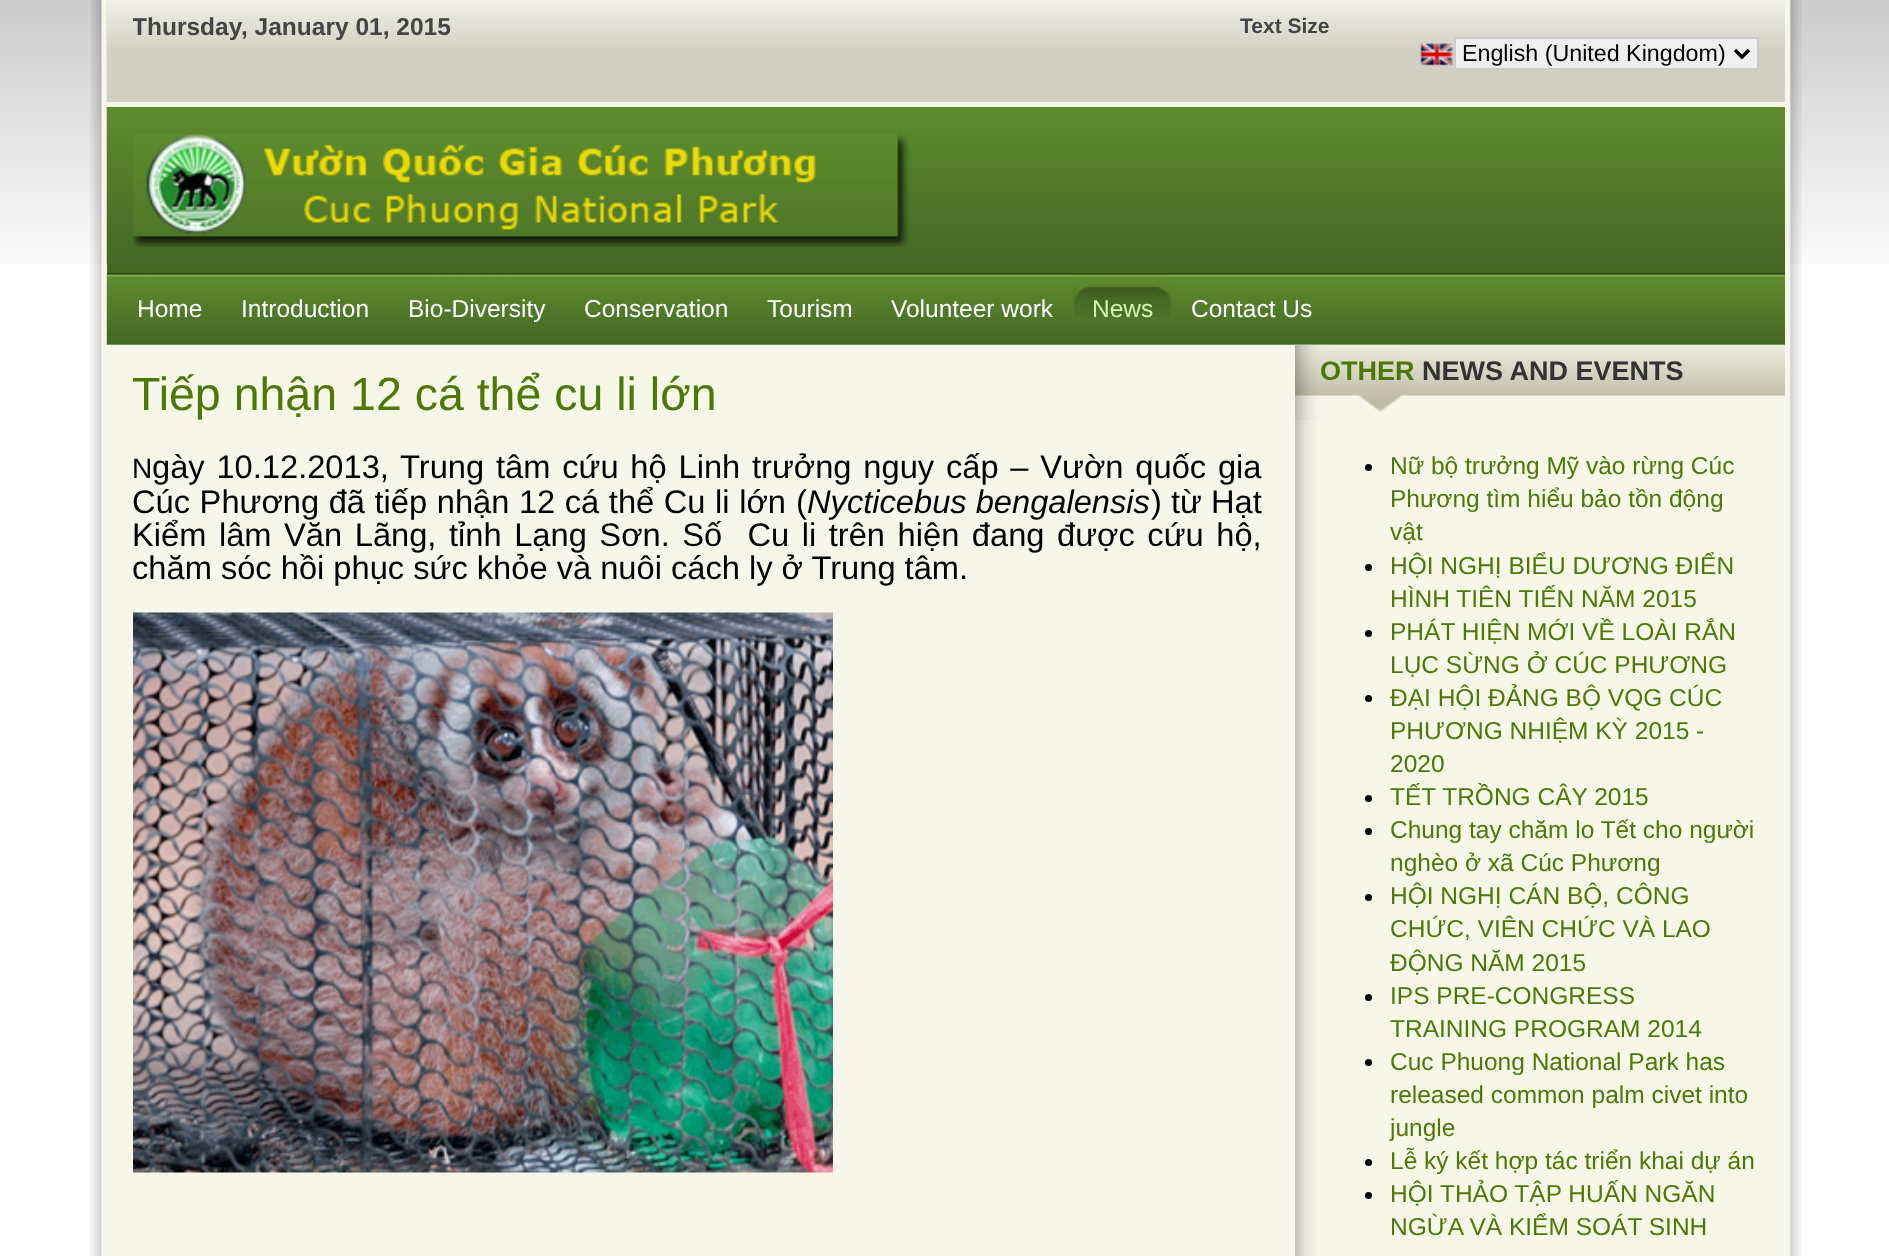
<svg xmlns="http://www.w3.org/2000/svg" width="1889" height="1256">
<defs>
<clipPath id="clip1"><rect x="133" y="11" width="1626" height="80"/></clipPath>
</defs>
<rect width="100%" height="100%" fill="#fff"/>
<image x="0" y="0" width="1889" height="264" href="media/1.png"/>
<image x="89" y="0" width="19" height="1256" href="media/2.png"/>
<image x="1785" y="0" width="17" height="1256" href="media/3.png"/>
<rect x="107" y="80" width="1678" height="22" fill="#d2d0c2"/>
<image x="106" y="0" width="1679" height="81" href="media/4.png"/>
<g clip-path="url(#clip1)">
<text x="132" y="35" style="font-family:Liberation Sans;font-size:24.5px;font-weight:bold;fill:#444">Thursday</text>
</g>
<text x="241" y="35" style="font-family:Liberation Sans;font-size:24.5px;font-weight:bold;fill:#444">, January 01, 2015</text>
<text x="1240" y="33" style="font-family:Liberation Sans;font-size:21px;font-weight:bold;fill:#444">Text Size</text>
<image x="1420" y="43" width="33" height="23" href="media/5.png"/>
<rect x="1455" y="38" width="303" height="31" fill="#efefef" stroke="#ccc" stroke-width="2"/>
<path d="M1735 50l7 7l7-7" fill="none" stroke="#000" stroke-width="3.5"/>
<text x="1462" y="61" style="font-family:Liberation Sans;font-size:23.25px;fill:#000">English (United Kingdom)</text>
<rect x="107" y="264" width="1678" height="9" fill="#456726"/>
<image x="106" y="106" width="1679" height="159" href="media/6.png"/>
<rect x="107" y="102" width="1678" height="5" fill="#f6f6e9"/>
<image x="133" y="134" width="776" height="113" href="media/7.png"/>
<image x="106" y="273" width="1679" height="72" href="media/8.png"/>
<text x="137" y="317" style="font-family:Liberation Sans;font-size:24.5px;fill:#fff">Home</text>
<text x="241" y="317" style="font-family:Liberation Sans;font-size:24.5px;fill:#fff">Introduction</text>
<text x="408" y="317" style="font-family:Liberation Sans;font-size:24.5px;fill:#fff">Bio-Diversity</text>
<text x="584" y="317" style="font-family:Liberation Sans;font-size:24.5px;fill:#fff">Conservation</text>
<text x="767" y="317" style="font-family:Liberation Sans;font-size:24.5px;fill:#fff">Tourism</text>
<text x="891" y="317" style="font-family:Liberation Sans;font-size:24.5px;fill:#fff">Volunteer work</text>
<image x="1074" y="274" width="97" height="43" href="media/9.png"/>
<image x="1074" y="286" width="14" height="19" href="media/10.png"/>
<text x="1092" y="317" style="font-family:Liberation Sans;font-size:24.5px;fill:#d1f7ad">News</text>
<text x="1191" y="317" style="font-family:Liberation Sans;font-size:24.5px;fill:#fff">Contact Us</text>
<rect x="107" y="345" width="1678" height="911" fill="#f6f6e9"/>
<image x="1295" y="344" width="35" height="912" href="media/11.png"/>
<text x="132" y="410" style="font-family:Liberation Sans;font-size:46.5px;fill:#4e7805">Tiếp nhận 12 cá thể cu li lớn</text>
<text x="132" y="478" style="font-family:Liberation Sans;font-size:28px;fill:#000">N</text>
<text x="152" y="478" word-spacing="2.75" style="font-family:Liberation Sans;font-size:32.65px;fill:#000">gày 10.12.2013, Trung tâm cứu hộ Linh trưởng nguy cấp – Vườn quốc gia</text>
<text x="132" y="513" word-spacing="0.5" style="font-family:Liberation Sans;font-size:32.65px;fill:#000">Cúc Phương đã tiếp nhận 12 cá thể Cu li lớn</text>
<text x="796" y="513" style="font-family:Liberation Sans;font-size:32.65px;fill:#000">(</text>
<text x="807" y="513" style="font-family:Liberation Sans;font-size:32.65px;font-style:italic;fill:#000">Nycticebus bengalensis</text>
<text x="1151" y="513" style="font-family:Liberation Sans;font-size:32.65px;fill:#000">)</text>
<text x="1171" y="513" style="font-family:Liberation Sans;font-size:32.65px;fill:#000">từ Hạt</text>
<text x="132" y="546" word-spacing="3.5" style="font-family:Liberation Sans;font-size:32.65px;fill:#000" xml:space="preserve">Kiểm lâm Văn Lãng, tỉnh Lạng Sơn. Số  Cu li trên hiện đang được cứu hộ,</text>
<text x="132" y="579" style="font-family:Liberation Sans;font-size:32.65px;fill:#000">chăm sóc hồi phục sức khỏe và nuôi cách ly ở Trung tâm.</text>
<image x="133" y="612" width="700" height="561" href="media/12.png"/>
<image x="1295" y="344" width="490" height="76" href="media/13.png"/>
<image x="1295" y="344" width="110" height="76" href="media/14.png"/>
<text x="1320" y="380" style="font-family:Liberation Sans;font-size:27px;font-weight:bold;fill:#4e7805">OTHER</text>
<text x="1422" y="380" style="font-family:Liberation Sans;font-size:27px;font-weight:bold;fill:#333">NEWS AND EVENTS</text>
<circle cx="1368.5" cy="467.5" r="3.5" fill="#000"/>
<text x="1390" y="474" style="font-family:Liberation Sans;font-size:24.5px;fill:#4e7805">Nữ bộ trưởng Mỹ vào rừng Cúc</text>
<text x="1390" y="507" style="font-family:Liberation Sans;font-size:24.5px;fill:#4e7805">Phương tìm hiểu bảo tồn động</text>
<text x="1390" y="540" style="font-family:Liberation Sans;font-size:24.5px;fill:#4e7805">vật</text>
<circle cx="1368.5" cy="567.5" r="3.5" fill="#000"/>
<text x="1390" y="574" style="font-family:Liberation Sans;font-size:24.5px;fill:#4e7805">HỘI NGHỊ BIỂU DƯƠNG ĐIỂN</text>
<text x="1390" y="607" style="font-family:Liberation Sans;font-size:24.5px;fill:#4e7805">HÌNH TIÊN TIẾN NĂM 2015</text>
<circle cx="1368.5" cy="633.5" r="3.5" fill="#000"/>
<text x="1390" y="640" style="font-family:Liberation Sans;font-size:24.5px;fill:#4e7805">PHÁT HIỆN MỚI VỀ LOÀI RẮN</text>
<text x="1390" y="673" style="font-family:Liberation Sans;font-size:24.5px;fill:#4e7805">LỤC SỪNG Ở CÚC PHƯƠNG</text>
<circle cx="1368.5" cy="698.5" r="3.5" fill="#000"/>
<text x="1390" y="706" style="font-family:Liberation Sans;font-size:24.5px;fill:#4e7805">ĐẠI HỘI ĐẢNG BỘ VQG CÚC</text>
<text x="1390" y="739" style="font-family:Liberation Sans;font-size:24.5px;fill:#4e7805">PHƯƠNG NHIỆM KỲ 2015 -</text>
<text x="1390" y="772" style="font-family:Liberation Sans;font-size:24.5px;fill:#4e7805">2020</text>
<circle cx="1368.5" cy="798.5" r="3.5" fill="#000"/>
<text x="1390" y="805" style="font-family:Liberation Sans;font-size:24.5px;fill:#4e7805">TẾT TRỒNG CÂY 2015</text>
<circle cx="1368.5" cy="831.5" r="3.5" fill="#000"/>
<text x="1390" y="838" style="font-family:Liberation Sans;font-size:24.5px;fill:#4e7805">Chung tay chăm lo Tết cho người</text>
<text x="1390" y="871" style="font-family:Liberation Sans;font-size:24.5px;fill:#4e7805">nghèo ở xã Cúc Phương</text>
<circle cx="1368.5" cy="897.5" r="3.5" fill="#000"/>
<text x="1390" y="904" style="font-family:Liberation Sans;font-size:24.5px;fill:#4e7805">HỘI NGHỊ CÁN BỘ, CÔNG</text>
<text x="1390" y="937" style="font-family:Liberation Sans;font-size:24.5px;fill:#4e7805">CHỨC, VIÊN CHỨC VÀ LAO</text>
<text x="1390" y="971" style="font-family:Liberation Sans;font-size:24.5px;fill:#4e7805">ĐỘNG NĂM 2015</text>
<circle cx="1368.5" cy="997.5" r="3.5" fill="#000"/>
<text x="1390" y="1004" style="font-family:Liberation Sans;font-size:24.5px;fill:#4e7805">IPS PRE-CONGRESS</text>
<text x="1390" y="1037" style="font-family:Liberation Sans;font-size:24.5px;fill:#4e7805">TRAINING PROGRAM 2014</text>
<circle cx="1368.5" cy="1062.5" r="3.5" fill="#000"/>
<text x="1390" y="1070" style="font-family:Liberation Sans;font-size:24.5px;fill:#4e7805">Cuc Phuong National Park has</text>
<text x="1390" y="1103" style="font-family:Liberation Sans;font-size:24.5px;fill:#4e7805">released common palm civet into</text>
<text x="1390" y="1136" style="font-family:Liberation Sans;font-size:24.5px;fill:#4e7805">jungle</text>
<circle cx="1368.5" cy="1162.5" r="3.5" fill="#000"/>
<text x="1390" y="1169" style="font-family:Liberation Sans;font-size:24.5px;fill:#4e7805">Lễ ký kết hợp tác triển khai dự án</text>
<circle cx="1368.5" cy="1195.5" r="3.5" fill="#000"/>
<text x="1390" y="1202" style="font-family:Liberation Sans;font-size:24.5px;fill:#4e7805">HỘI THẢO TẬP HUẤN NGĂN</text>
<text x="1390" y="1235" style="font-family:Liberation Sans;font-size:24.5px;fill:#4e7805">NGỪA VÀ KIỂM SOÁT SINH</text>
</svg>
